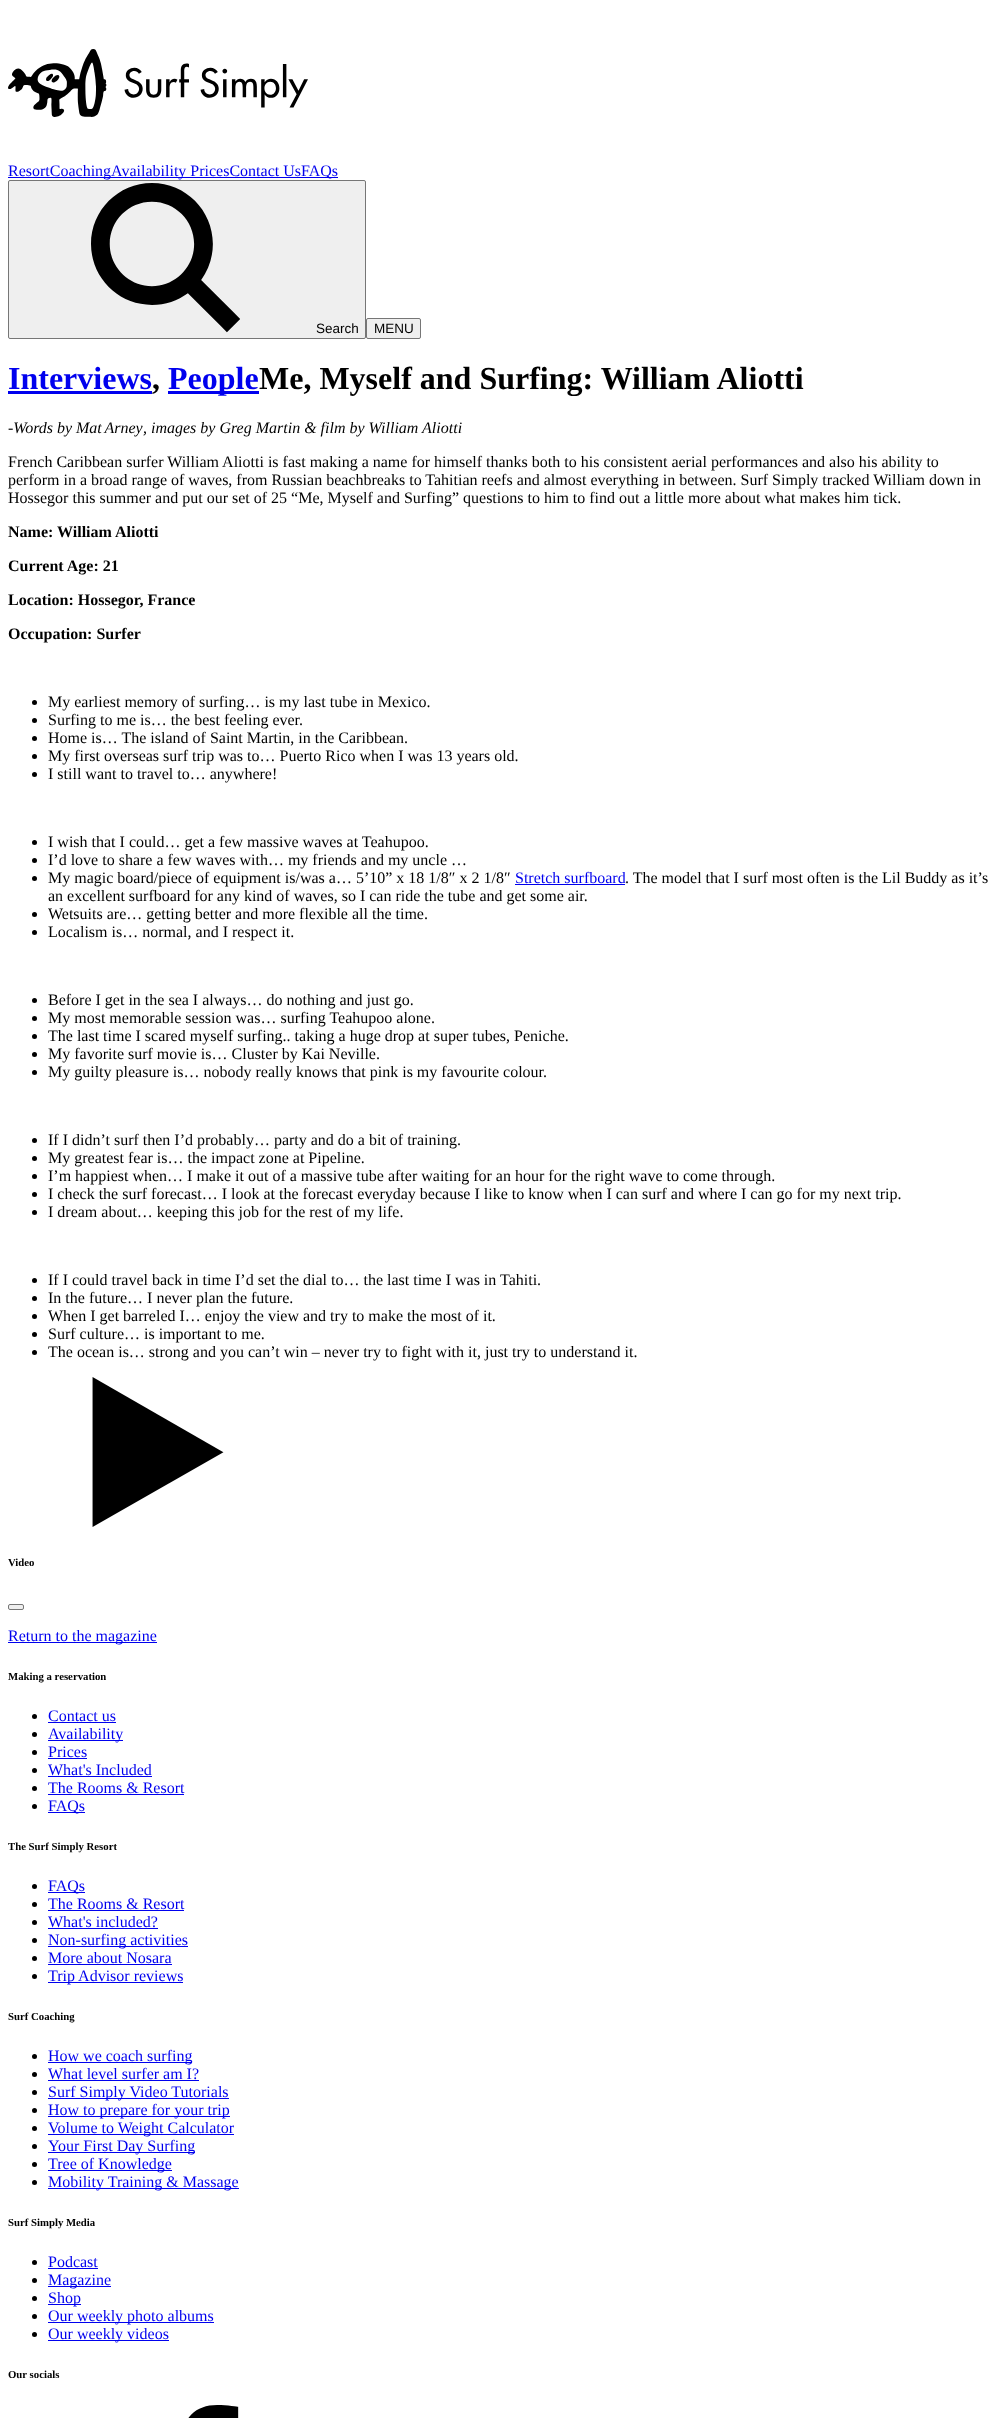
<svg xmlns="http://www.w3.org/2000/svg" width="1001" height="2418">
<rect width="100%" height="100%" fill="#fff"/>
<image x="8" y="49" width="300" height="68" href="media/1.png"/>
<rect x="8" y="177" width="330" height="1" fill="#00e"/>
<text x="8" y="176" style="font-family:Liberation Serif;font-size:16px;fill:#00e">ResortCoachingAvailability PricesContact UsFAQs</text>
<rect x="8.5" y="180.5" width="357" height="158" rx="1.5" fill="#efefef" stroke="#767676"/>
<image x="91" y="183" width="149" height="150" href="media/2.png"/>
<text x="316" y="333" style="font-family:Liberation Sans;font-size:13.5px;fill:#000">Search</text>
<rect x="366.5" y="318.5" width="54" height="20" rx="1.5" fill="#efefef" stroke="#767676"/>
<text x="374" y="333" style="font-family:Liberation Sans;font-size:13.5px;fill:#000">MENU</text>
<text x="8" y="389" style="font-family:Liberation Serif;font-size:32px;font-weight:bold;fill:#00e">Interviews</text>
<text x="152" y="389" style="font-family:Liberation Serif;font-size:32px;font-weight:bold;fill:#000">,</text>
<rect x="8" y="391" width="144" height="3" fill="#00e"/>
<rect x="168" y="391" width="91" height="3" fill="#00e"/>
<text x="168" y="389" style="font-family:Liberation Serif;font-size:32px;font-weight:bold;fill:#00e">People</text>
<text x="259" y="389" style="font-family:Liberation Serif;font-size:32px;font-weight:bold;fill:#000">Me, Myself and Surfing: William Aliotti</text>
<text x="8" y="433" style="font-family:Liberation Serif;font-size:16px;font-style:italic;fill:#000">-Words by</text>
<text x="76" y="433" word-spacing="-1" style="font-family:Liberation Serif;font-size:16px;font-style:italic;fill:#000">Mat Arney</text>
<text x="143" y="433" style="font-family:Liberation Serif;font-size:16px;font-style:italic;fill:#000">, images by Greg Martin &amp; film by William Aliotti</text>
<text x="8" y="467" style="font-family:Liberation Serif;font-size:16px;fill:#000">French Caribbean surfer William Aliotti is fast making a name for himself thanks both to his consistent aerial performances and also his ability to</text>
<text x="8" y="485" style="font-family:Liberation Serif;font-size:16px;fill:#000">perform in a broad range of waves, from Russian beachbreaks to Tahitian reefs and almost everything in between. Surf Simply tracked William down in</text>
<text x="8" y="503" style="font-family:Liberation Serif;font-size:16px;fill:#000">Hossegor this summer and put our set of 25 “Me, Myself and Surfing” questions to him to find out a little more about what makes him tick.</text>
<text x="8" y="537" style="font-family:Liberation Serif;font-size:16px;font-weight:bold;fill:#000">Name: William Aliotti</text>
<text x="8" y="571" style="font-family:Liberation Serif;font-size:16px;font-weight:bold;fill:#000">Current Age: 21</text>
<text x="8" y="605" style="font-family:Liberation Serif;font-size:16px;font-weight:bold;fill:#000">Location: Hossegor, France</text>
<text x="8" y="639" style="font-family:Liberation Serif;font-size:16px;font-weight:bold;fill:#000">Occupation: Surfer</text>
<circle cx="34.5" cy="702.5" r="2.5" fill="#000"/>
<text x="48" y="707" style="font-family:Liberation Serif;font-size:16px;fill:#000">My earliest memory of surfing… is my last tube in Mexico.</text>
<circle cx="34.5" cy="720.5" r="2.5" fill="#000"/>
<text x="48" y="725" style="font-family:Liberation Serif;font-size:16px;fill:#000">Surfing to me is… the best feeling ever.</text>
<circle cx="34.5" cy="738.5" r="2.5" fill="#000"/>
<text x="48" y="743" style="font-family:Liberation Serif;font-size:16px;fill:#000">Home is… The island of Saint Martin, in the Caribbean.</text>
<circle cx="34.5" cy="756.5" r="2.5" fill="#000"/>
<text x="48" y="761" style="font-family:Liberation Serif;font-size:16px;fill:#000">My first overseas surf trip was to… Puerto Rico when I was 13 years old.</text>
<circle cx="34.5" cy="774.5" r="2.5" fill="#000"/>
<text x="48" y="779" style="font-family:Liberation Serif;font-size:16px;fill:#000">I still want to travel to… anywhere!</text>
<circle cx="34.5" cy="842.5" r="2.5" fill="#000"/>
<text x="48" y="847" style="font-family:Liberation Serif;font-size:16px;fill:#000">I wish that I could… get a few massive waves at Teahupoo.</text>
<circle cx="34.5" cy="860.5" r="2.5" fill="#000"/>
<text x="48" y="865" style="font-family:Liberation Serif;font-size:16px;fill:#000">I’d love to share a few waves with… my friends and my uncle …</text>
<circle cx="34.5" cy="878.5" r="2.5" fill="#000"/>
<text x="48" y="883" style="font-family:Liberation Serif;font-size:16px;fill:#000">My magic board/piece of equipment is/was a… 5’10” x 18 1/8″ x 2 1/8″</text>
<text x="515" y="883" style="font-family:Liberation Serif;font-size:16px;fill:#00e">Stretch surfboard</text>
<rect x="515" y="884" width="110" height="1" fill="#00e"/>
<text x="625" y="883" style="font-family:Liberation Serif;font-size:16px;fill:#000">. The model that I surf most often is the Lil Buddy as it’s</text>
<text x="48" y="901" style="font-family:Liberation Serif;font-size:16px;fill:#000">an excellent surfboard for any kind of waves, so I can ride the tube and get some air.</text>
<circle cx="34.5" cy="914.5" r="2.5" fill="#000"/>
<text x="48" y="919" style="font-family:Liberation Serif;font-size:16px;fill:#000">Wetsuits are… getting better and more flexible all the time.</text>
<circle cx="34.5" cy="932.5" r="2.5" fill="#000"/>
<text x="48" y="937" style="font-family:Liberation Serif;font-size:16px;fill:#000">Localism is… normal, and I respect it.</text>
<circle cx="34.5" cy="1000.5" r="2.5" fill="#000"/>
<text x="48" y="1005" style="font-family:Liberation Serif;font-size:16px;fill:#000">Before I get in the sea I always… do nothing and just go.</text>
<circle cx="34.5" cy="1018.5" r="2.5" fill="#000"/>
<text x="48" y="1023" style="font-family:Liberation Serif;font-size:16px;fill:#000">My most memorable session was… surfing Teahupoo alone.</text>
<circle cx="34.5" cy="1036.5" r="2.5" fill="#000"/>
<text x="48" y="1041" style="font-family:Liberation Serif;font-size:16px;fill:#000">The last time I scared myself surfing.. taking a huge drop at super tubes, Peniche.</text>
<circle cx="34.5" cy="1054.5" r="2.5" fill="#000"/>
<text x="48" y="1059" style="font-family:Liberation Serif;font-size:16px;fill:#000">My favorite surf movie is… Cluster by Kai Neville.</text>
<circle cx="34.5" cy="1072.5" r="2.5" fill="#000"/>
<text x="48" y="1077" style="font-family:Liberation Serif;font-size:16px;fill:#000">My guilty pleasure is… nobody really knows that pink is my favourite colour.</text>
<circle cx="34.5" cy="1140.5" r="2.5" fill="#000"/>
<text x="48" y="1145" style="font-family:Liberation Serif;font-size:16px;fill:#000">If I didn’t surf then I’d probably… party and do a bit of training.</text>
<circle cx="34.5" cy="1158.5" r="2.5" fill="#000"/>
<text x="48" y="1163" style="font-family:Liberation Serif;font-size:16px;fill:#000">My greatest fear is… the impact zone at Pipeline.</text>
<circle cx="34.5" cy="1176.5" r="2.5" fill="#000"/>
<text x="48" y="1181" style="font-family:Liberation Serif;font-size:16px;fill:#000">I’m happiest when… I make it out of a massive tube after waiting for an hour for the right wave to come through.</text>
<circle cx="34.5" cy="1194.5" r="2.5" fill="#000"/>
<text x="48" y="1199" style="font-family:Liberation Serif;font-size:16px;fill:#000">I check the surf forecast… I look at the forecast everyday because I like to know when I can surf and where I can go for my next trip.</text>
<circle cx="34.5" cy="1212.5" r="2.5" fill="#000"/>
<text x="48" y="1217" style="font-family:Liberation Serif;font-size:16px;fill:#000">I dream about… keeping this job for the rest of my life.</text>
<circle cx="34.5" cy="1280.5" r="2.5" fill="#000"/>
<text x="48" y="1285" style="font-family:Liberation Serif;font-size:16px;fill:#000">If I could travel back in time I’d set the dial to… the last time I was in Tahiti.</text>
<circle cx="34.5" cy="1298.5" r="2.5" fill="#000"/>
<text x="48" y="1303" style="font-family:Liberation Serif;font-size:16px;fill:#000">In the future… I never plan the future.</text>
<circle cx="34.5" cy="1316.5" r="2.5" fill="#000"/>
<text x="48" y="1321" style="font-family:Liberation Serif;font-size:16px;fill:#000">When I get barreled I… enjoy the view and try to make the most of it.</text>
<circle cx="34.5" cy="1334.5" r="2.5" fill="#000"/>
<text x="48" y="1339" style="font-family:Liberation Serif;font-size:16px;fill:#000">Surf culture… is important to me.</text>
<circle cx="34.5" cy="1352.5" r="2.5" fill="#000"/>
<text x="48" y="1357" style="font-family:Liberation Serif;font-size:16px;fill:#000">The ocean is… strong and you can’t win – never try to fight with it, just try to understand it.</text>
<image x="92" y="1377" width="132" height="150" href="media/3.png"/>
<text x="8" y="1566" style="font-family:Liberation Serif;font-size:10.75px;font-weight:bold;fill:#000">Video</text>
<rect x="8.5" y="1604.5" width="15" height="5" rx="1.5" fill="#efefef" stroke="#767676"/>
<rect x="8" y="1642" width="149" height="1" fill="#00e"/>
<text x="8" y="1641" style="font-family:Liberation Serif;font-size:16px;fill:#00e">Return to the magazine</text>
<text x="8" y="1680" style="font-family:Liberation Serif;font-size:10.75px;font-weight:bold;fill:#000">Making a reservation</text>
<circle cx="34.5" cy="1716.5" r="2.5" fill="#000"/>
<text x="48" y="1721" style="font-family:Liberation Serif;font-size:16px;fill:#00e">Contact us</text>
<rect x="48" y="1722" width="68" height="1" fill="#00e"/>
<circle cx="34.5" cy="1734.5" r="2.5" fill="#000"/>
<rect x="48" y="1740" width="75" height="1" fill="#00e"/>
<text x="48" y="1739" style="font-family:Liberation Serif;font-size:16px;fill:#00e">Availability</text>
<circle cx="34.5" cy="1752.5" r="2.5" fill="#000"/>
<text x="48" y="1757" style="font-family:Liberation Serif;font-size:16px;fill:#00e">Prices</text>
<rect x="48" y="1758" width="39" height="1" fill="#00e"/>
<circle cx="34.5" cy="1770.5" r="2.5" fill="#000"/>
<text x="48" y="1775" style="font-family:Liberation Serif;font-size:16px;fill:#00e">What's Included</text>
<rect x="48" y="1776" width="104" height="1" fill="#00e"/>
<circle cx="34.5" cy="1788.5" r="2.5" fill="#000"/>
<text x="48" y="1793" style="font-family:Liberation Serif;font-size:16px;fill:#00e">The Rooms &amp; Resort</text>
<rect x="48" y="1794" width="136" height="1" fill="#00e"/>
<circle cx="34.5" cy="1806.5" r="2.5" fill="#000"/>
<rect x="48" y="1812" width="37" height="1" fill="#00e"/>
<text x="48" y="1811" style="font-family:Liberation Serif;font-size:16px;fill:#00e">FAQs</text>
<text x="8" y="1850" style="font-family:Liberation Serif;font-size:10.75px;font-weight:bold;fill:#000">The Surf Simply Resort</text>
<circle cx="34.5" cy="1886.5" r="2.5" fill="#000"/>
<rect x="48" y="1892" width="37" height="1" fill="#00e"/>
<text x="48" y="1891" style="font-family:Liberation Serif;font-size:16px;fill:#00e">FAQs</text>
<circle cx="34.5" cy="1904.5" r="2.5" fill="#000"/>
<text x="48" y="1909" style="font-family:Liberation Serif;font-size:16px;fill:#00e">The Rooms &amp; Resort</text>
<rect x="48" y="1910" width="136" height="1" fill="#00e"/>
<circle cx="34.5" cy="1922.5" r="2.5" fill="#000"/>
<text x="48" y="1927" style="font-family:Liberation Serif;font-size:16px;fill:#00e">What's included?</text>
<rect x="48" y="1928" width="110" height="1" fill="#00e"/>
<circle cx="34.5" cy="1940.5" r="2.5" fill="#000"/>
<rect x="48" y="1946" width="140" height="1" fill="#00e"/>
<text x="48" y="1945" style="font-family:Liberation Serif;font-size:16px;fill:#00e">Non-surfing activities</text>
<circle cx="34.5" cy="1958.5" r="2.5" fill="#000"/>
<text x="48" y="1963" style="font-family:Liberation Serif;font-size:16px;fill:#00e">More about Nosara</text>
<rect x="48" y="1964" width="124" height="1" fill="#00e"/>
<circle cx="34.5" cy="1976.5" r="2.5" fill="#000"/>
<rect x="48" y="1982" width="135" height="1" fill="#00e"/>
<text x="48" y="1981" style="font-family:Liberation Serif;font-size:16px;fill:#00e">Trip Advisor reviews</text>
<text x="8" y="2020" style="font-family:Liberation Serif;font-size:10.75px;font-weight:bold;fill:#000">Surf Coaching</text>
<circle cx="34.5" cy="2056.5" r="2.5" fill="#000"/>
<rect x="48" y="2062" width="144" height="1" fill="#00e"/>
<text x="48" y="2061" style="font-family:Liberation Serif;font-size:16px;fill:#00e">How we coach surfing</text>
<circle cx="34.5" cy="2074.5" r="2.5" fill="#000"/>
<text x="48" y="2079" style="font-family:Liberation Serif;font-size:16px;fill:#00e">What level surfer am I?</text>
<rect x="48" y="2080" width="151" height="1" fill="#00e"/>
<circle cx="34.5" cy="2092.5" r="2.5" fill="#000"/>
<rect x="48" y="2098" width="181" height="1" fill="#00e"/>
<text x="48" y="2097" style="font-family:Liberation Serif;font-size:16px;fill:#00e">Surf Simply Video Tutorials</text>
<circle cx="34.5" cy="2110.5" r="2.5" fill="#000"/>
<rect x="48" y="2116" width="182" height="1" fill="#00e"/>
<text x="48" y="2115" style="font-family:Liberation Serif;font-size:16px;fill:#00e">How to prepare for your trip</text>
<circle cx="34.5" cy="2128.5" r="2.5" fill="#000"/>
<rect x="48" y="2134" width="186" height="1" fill="#00e"/>
<text x="48" y="2133" style="font-family:Liberation Serif;font-size:16px;fill:#00e">Volume to Weight Calculator</text>
<circle cx="34.5" cy="2146.5" r="2.5" fill="#000"/>
<rect x="48" y="2152" width="147" height="1" fill="#00e"/>
<text x="48" y="2151" style="font-family:Liberation Serif;font-size:16px;fill:#00e">Your First Day Surfing</text>
<circle cx="34.5" cy="2164.5" r="2.5" fill="#000"/>
<rect x="48" y="2170" width="124" height="1" fill="#00e"/>
<text x="48" y="2169" style="font-family:Liberation Serif;font-size:16px;fill:#00e">Tree of Knowledge</text>
<circle cx="34.5" cy="2182.5" r="2.5" fill="#000"/>
<rect x="48" y="2188" width="191" height="1" fill="#00e"/>
<text x="48" y="2187" style="font-family:Liberation Serif;font-size:16px;fill:#00e">Mobility Training &amp; Massage</text>
<text x="8" y="2226" style="font-family:Liberation Serif;font-size:10.75px;font-weight:bold;fill:#000">Surf Simply Media</text>
<circle cx="34.5" cy="2262.5" r="2.5" fill="#000"/>
<text x="48" y="2267" style="font-family:Liberation Serif;font-size:16px;fill:#00e">Podcast</text>
<rect x="48" y="2268" width="50" height="1" fill="#00e"/>
<circle cx="34.5" cy="2280.5" r="2.5" fill="#000"/>
<rect x="48" y="2286" width="63" height="1" fill="#00e"/>
<text x="48" y="2285" style="font-family:Liberation Serif;font-size:16px;fill:#00e">Magazine</text>
<circle cx="34.5" cy="2298.5" r="2.5" fill="#000"/>
<rect x="48" y="2304" width="33" height="1" fill="#00e"/>
<text x="48" y="2303" style="font-family:Liberation Serif;font-size:16px;fill:#00e">Shop</text>
<circle cx="34.5" cy="2316.5" r="2.5" fill="#000"/>
<rect x="48" y="2322" width="166" height="1" fill="#00e"/>
<text x="48" y="2321" style="font-family:Liberation Serif;font-size:16px;fill:#00e">Our weekly photo albums</text>
<circle cx="34.5" cy="2334.5" r="2.5" fill="#000"/>
<rect x="48" y="2340" width="121" height="1" fill="#00e"/>
<text x="48" y="2339" style="font-family:Liberation Serif;font-size:16px;fill:#00e">Our weekly videos</text>
<text x="8" y="2378" style="font-family:Liberation Serif;font-size:10.75px;font-weight:bold;fill:#000">Our socials</text>
<image x="188" y="2405" width="51" height="13" href="media/4.png"/>
</svg>
